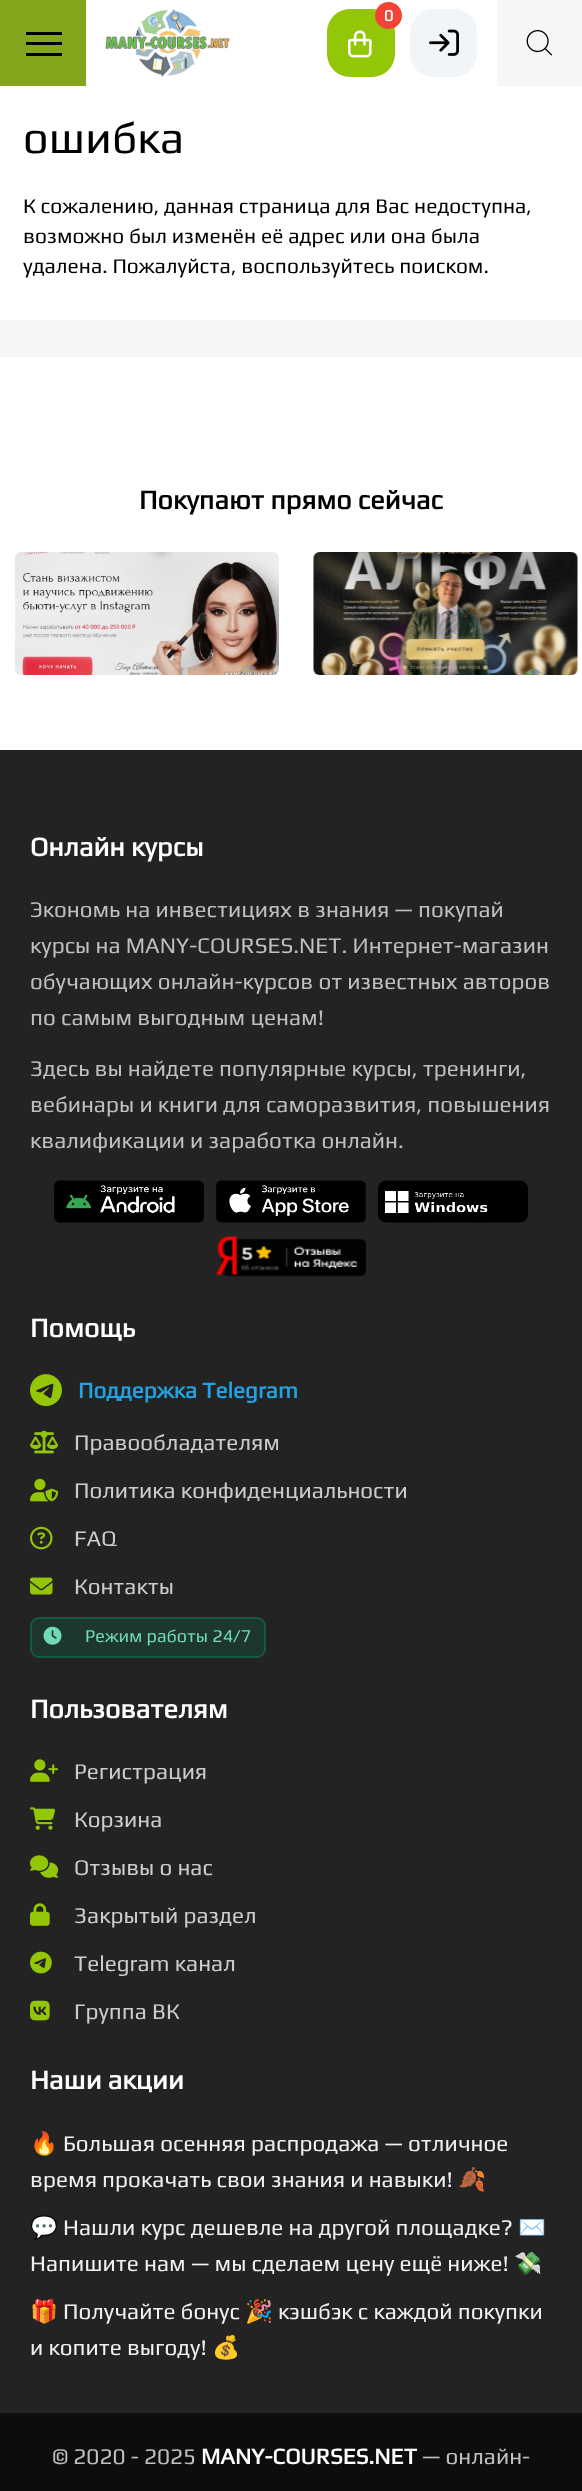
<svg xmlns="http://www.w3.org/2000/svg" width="582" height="2491">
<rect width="100%" height="100%" fill="#f6f6f6"/>
<rect x="86" width="411" height="86" fill="#fff"/>
<rect width="86" height="86" fill="#82a71d"/>
<rect x="26" y="32" width="36" height="3" fill="#000"/>
<rect x="26" y="42" width="36" height="3" fill="#000"/>
<rect x="26" y="53" width="36" height="3" fill="#000"/>
<image x="105" y="9" width="125" height="68" href="media/1.png"/>
<rect x="327" y="9" width="68" height="68" rx="23" fill="#94c608"/>
<circle cx="388.5" cy="15.5" r="13.5" fill="#f44336"/>
<text x="384" y="21" style="font-family:Play;font-size:16px;font-weight:bold;fill:#fff">0</text>
<image x="348" y="30" width="24" height="28" href="media/2.png"/>
<rect x="410" y="9" width="67" height="68" rx="23" fill="#f2f5f7"/>
<image x="429" y="29" width="30" height="27" href="media/3.png"/>
<image x="526" y="30" width="27" height="26" href="media/4.png"/>
<rect y="86" width="582" height="234" fill="#fff"/>
<text x="23" y="153" style="font-family:Play;font-size:45px;fill:#000">ошибка</text>
<text x="23" y="213" style="font-family:Play;font-size:21px;fill:#000">К сожалению, данная страница для Вас недоступна,</text>
<text x="23" y="243" style="font-family:Play;font-size:21px;fill:#000">возможно был изменён её адрес или она была</text>
<text x="23" y="273" style="font-family:Play;font-size:21px;fill:#000">удалена. Пожалуйста, воспользуйтесь поиском.</text>
<rect y="357" width="582" height="393" fill="#fff"/>
<text x="139" y="509" style="font-family:Play;font-size:27px;font-weight:bold;fill:#000">Покупают прямо сейчас</text>
<image x="15" y="552" width="264" height="123" href="media/5.png"/>
<image x="313" y="552" width="265" height="123" href="media/6.png"/>
<rect y="750" width="582" height="1661" fill="#232323"/>
<text x="30" y="856" style="font-family:Play;font-size:27px;font-weight:bold;fill:#fff">Онлайн курсы</text>
<text x="30" y="917" style="font-family:Play;font-size:22.5px;fill:#bfbfbf">Экономь на инвестициях в знания — покупай</text>
<text x="30" y="953" style="font-family:Play;font-size:22.5px;fill:#bfbfbf">курсы на MANY-COURSES.NET. Интернет-магазин</text>
<text x="30" y="989" style="font-family:Play;font-size:22.5px;fill:#bfbfbf">обучающих онлайн-курсов от известных авторов</text>
<text x="30" y="1025" style="font-family:Play;font-size:22.5px;fill:#bfbfbf">по самым выгодным ценам!</text>
<text x="30" y="1076" style="font-family:Play;font-size:22.5px;fill:#bfbfbf">Здесь вы найдете популярные курсы, тренинги,</text>
<text x="30" y="1112" style="font-family:Play;font-size:22.5px;fill:#bfbfbf">вебинары и книги для саморазвития, повышения</text>
<text x="30" y="1148" style="font-family:Play;font-size:22.5px;fill:#bfbfbf">квалификации и заработка онлайн.</text>
<image x="54" y="1180" width="150" height="43" href="media/7.png"/>
<image x="216" y="1180" width="150" height="43" href="media/8.png"/>
<image x="378" y="1180" width="150" height="43" href="media/9.png"/>
<image x="216" y="1235" width="150" height="42" href="media/10.png"/>
<text x="30" y="1337" style="font-family:Play;font-size:27px;font-weight:bold;fill:#fff">Помощь</text>
<image x="30" y="1374" width="32" height="33" href="media/11.png"/>
<text x="78" y="1398" style="font-family:Play;font-size:22.5px;font-weight:bold;fill:#24a1de">Поддержка Telegram</text>
<image x="30" y="1430" width="28" height="24" href="media/12.png"/>
<text x="74" y="1450" style="font-family:Play;font-size:22.5px;fill:#ccc">Правообладателям</text>
<image x="30" y="1478" width="29" height="24" href="media/13.png"/>
<text x="74" y="1498" style="font-family:Play;font-size:22.5px;fill:#ccc">Политика конфиденциальности</text>
<image x="30" y="1526" width="23" height="24" href="media/14.png"/>
<text x="74" y="1546" style="font-family:Play;font-size:22.5px;fill:#ccc">FAQ</text>
<image x="30" y="1577" width="23" height="18" href="media/15.png"/>
<text x="74" y="1594" style="font-family:Play;font-size:22.5px;fill:#ccc">Контакты</text>
<rect x="30" y="1617" width="236" height="41" rx="9" fill="#1e372e"/>
<rect x="31" y="1618" width="234" height="39" rx="8" fill="none" stroke="#00aa6e4d" stroke-width="2"/>
<image x="43" y="1626" width="19" height="19" href="media/16.png"/>
<text x="85" y="1642" style="font-family:Play;font-size:18px;fill:#70d9b5">Режим работы 24/7</text>
<text x="30" y="1718" style="font-family:Play;font-size:27px;font-weight:bold;fill:#fff">Пользователям</text>
<image x="30" y="1759" width="29" height="23" href="media/17.png"/>
<text x="74" y="1779" style="font-family:Play;font-size:22.5px;fill:#ccc">Регистрация</text>
<image x="30" y="1807" width="26" height="23" href="media/18.png"/>
<text x="74" y="1827" style="font-family:Play;font-size:22.5px;fill:#ccc">Корзина</text>
<image x="30" y="1855" width="29" height="23" href="media/19.png"/>
<text x="74" y="1875" style="font-family:Play;font-size:22.5px;fill:#ccc">Отзывы о нас</text>
<image x="30" y="1903" width="20" height="23" href="media/20.png"/>
<text x="74" y="1923" style="font-family:Play;font-size:22.5px;fill:#ccc">Закрытый раздел</text>
<image x="30" y="1951" width="22" height="23" href="media/21.png"/>
<text x="74" y="1971" style="font-family:Play;font-size:22.5px;fill:#ccc">Telegram канал</text>
<image x="30" y="2000" width="20" height="21" href="media/22.png"/>
<text x="74" y="2019" style="font-family:Play;font-size:22.5px;fill:#ccc">Группа ВК</text>
<text x="30" y="2089" style="font-family:Play;font-size:27px;font-weight:bold;fill:#fff">Наши акции</text>
<text x="30" y="2151" style="font-family:Noto Color Emoji;font-size:22.5px;fill:#f0f0f0">🔥</text>
<text x="63" y="2151" style="font-family:Play;font-size:22.5px;fill:#f0f0f0">Большая осенняя распродажа — отличное</text>
<text x="30" y="2187" style="font-family:Play;font-size:22.5px;fill:#f0f0f0">время прокачать свои знания и навыки!</text>
<text x="458" y="2187" style="font-family:Noto Color Emoji;font-size:22.5px;fill:#f0f0f0">🍂</text>
<text x="30" y="2235" style="font-family:Noto Color Emoji;font-size:22.5px;fill:#f0f0f0">💬</text>
<text x="63" y="2235" style="font-family:Play;font-size:22.5px;fill:#f0f0f0">Нашли курс дешевле на другой площадке?</text>
<text x="518" y="2235" style="font-family:Noto Color Emoji;font-size:22.5px;fill:#f0f0f0">✉️</text>
<text x="30" y="2271" style="font-family:Play;font-size:22.5px;fill:#f0f0f0">Напишите нам — мы сделаем цену ещё ниже!</text>
<text x="514" y="2271" style="font-family:Noto Color Emoji;font-size:22.5px;fill:#f0f0f0">💸</text>
<text x="30" y="2319" style="font-family:Noto Color Emoji;font-size:22.5px;fill:#f0f0f0">🎁</text>
<text x="63" y="2319" style="font-family:Play;font-size:22.5px;fill:#f0f0f0">Получайте бонус</text>
<text x="245" y="2319" style="font-family:Noto Color Emoji;font-size:22.5px;fill:#f0f0f0">🎉</text>
<text x="278" y="2319" style="font-family:Play;font-size:22.5px;fill:#f0f0f0">кэшбэк с каждой покупки</text>
<text x="30" y="2355" style="font-family:Play;font-size:22.5px;fill:#f0f0f0">и копите выгоду!</text>
<text x="212" y="2355" style="font-family:Noto Color Emoji;font-size:22.5px;fill:#f0f0f0">💰</text>
<rect y="2413" width="582" height="78" fill="#0d0d0d"/>
<rect y="2411" width="582" height="2" fill="#252525"/>
<text x="52" y="2464" style="font-family:Play;font-size:22.5px;fill:#bfbfbf">© 2020 - 2025</text>
<text x="201" y="2464" style="font-family:Play;font-size:22.5px;font-weight:bold;fill:#fff">MANY-COURSES.NET</text>
<text x="422" y="2464" style="font-family:Play;font-size:22.5px;fill:#bfbfbf">— онлайн-</text>
</svg>
